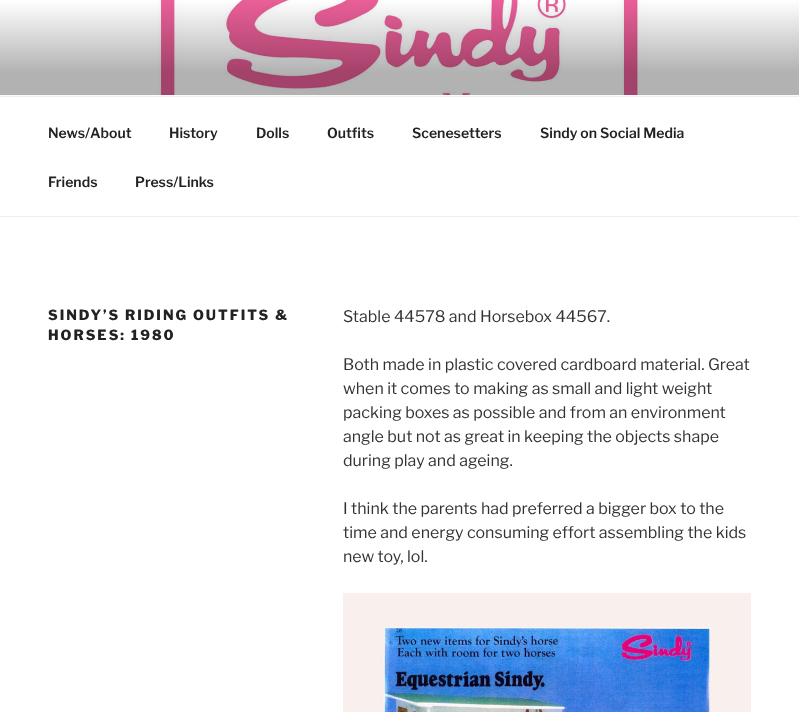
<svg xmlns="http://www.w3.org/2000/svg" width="799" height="712">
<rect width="100%" height="100%" fill="#fff"/>
<rect y="95" width="799" height="1" fill="#fafafa"/>
<image x="0" y="0" width="799" height="95" href="media/1.png"/>
<rect y="96" width="799" height="1" fill="#eee"/>
<rect y="216" width="799" height="1" fill="#eee"/>
<text x="48" y="138" style="font-family:'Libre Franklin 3';font-size:14px;font-weight:100;fill:#222">News/About</text>
<text x="169" y="138" style="font-family:'Libre Franklin 3';font-size:14px;font-weight:100;fill:#222">History</text>
<text x="256" y="138" style="font-family:'Libre Franklin 3';font-size:14px;font-weight:100;fill:#222">Dolls</text>
<text x="327" y="138" style="font-family:'Libre Franklin 3';font-size:14px;font-weight:100;fill:#222">Outfits</text>
<text x="412" y="138" style="font-family:'Libre Franklin 3';font-size:14px;font-weight:100;fill:#222">Scenesetters</text>
<text x="540" y="138" style="font-family:'Libre Franklin 3';font-size:14px;font-weight:100;fill:#222">Sindy on Social Media</text>
<text x="48" y="187" style="font-family:'Libre Franklin 3';font-size:14px;font-weight:100;fill:#222">Friends</text>
<text x="135" y="187" style="font-family:'Libre Franklin 3';font-size:14px;font-weight:100;fill:#222">Press/Links</text>
<text x="48" y="320" style="font-family:Libre Franklin;font-size:14px;font-weight:100;letter-spacing:2px;fill:#222">SINDY’S RIDING OUTFITS &amp;</text>
<text x="48" y="340" style="font-family:Libre Franklin;font-size:14px;font-weight:100;letter-spacing:2px;fill:#222">HORSES: 1980</text>
<text x="343" y="322" style="font-family:'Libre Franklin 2';font-size:16px;font-weight:100;fill:#333">Stable 44578 and Horsebox 44567.</text>
<text x="343" y="370" style="font-family:'Libre Franklin 2';font-size:16px;font-weight:100;fill:#333">Both made in plastic covered cardboard material. Great</text>
<text x="343" y="394" style="font-family:'Libre Franklin 2';font-size:16px;font-weight:100;fill:#333">when it comes to making as small and light weight</text>
<text x="343" y="418" style="font-family:'Libre Franklin 2';font-size:16px;font-weight:100;fill:#333">packing boxes as possible and from an environment</text>
<text x="343" y="442" style="font-family:'Libre Franklin 2';font-size:16px;font-weight:100;fill:#333">angle but not as great in keeping the objects shape</text>
<text x="343" y="466" style="font-family:'Libre Franklin 2';font-size:16px;font-weight:100;fill:#333">during play and ageing.</text>
<text x="343" y="514" style="font-family:'Libre Franklin 2';font-size:16px;font-weight:100;fill:#333">I think the parents had preferred a bigger box to the</text>
<text x="343" y="538" style="font-family:'Libre Franklin 2';font-size:16px;font-weight:100;fill:#333">time and energy consuming effort assembling the kids</text>
<text x="343" y="562" style="font-family:'Libre Franklin 2';font-size:16px;font-weight:100;fill:#333">new toy, lol.</text>
<image x="343" y="593" width="408" height="119" href="media/2.png"/>
</svg>
